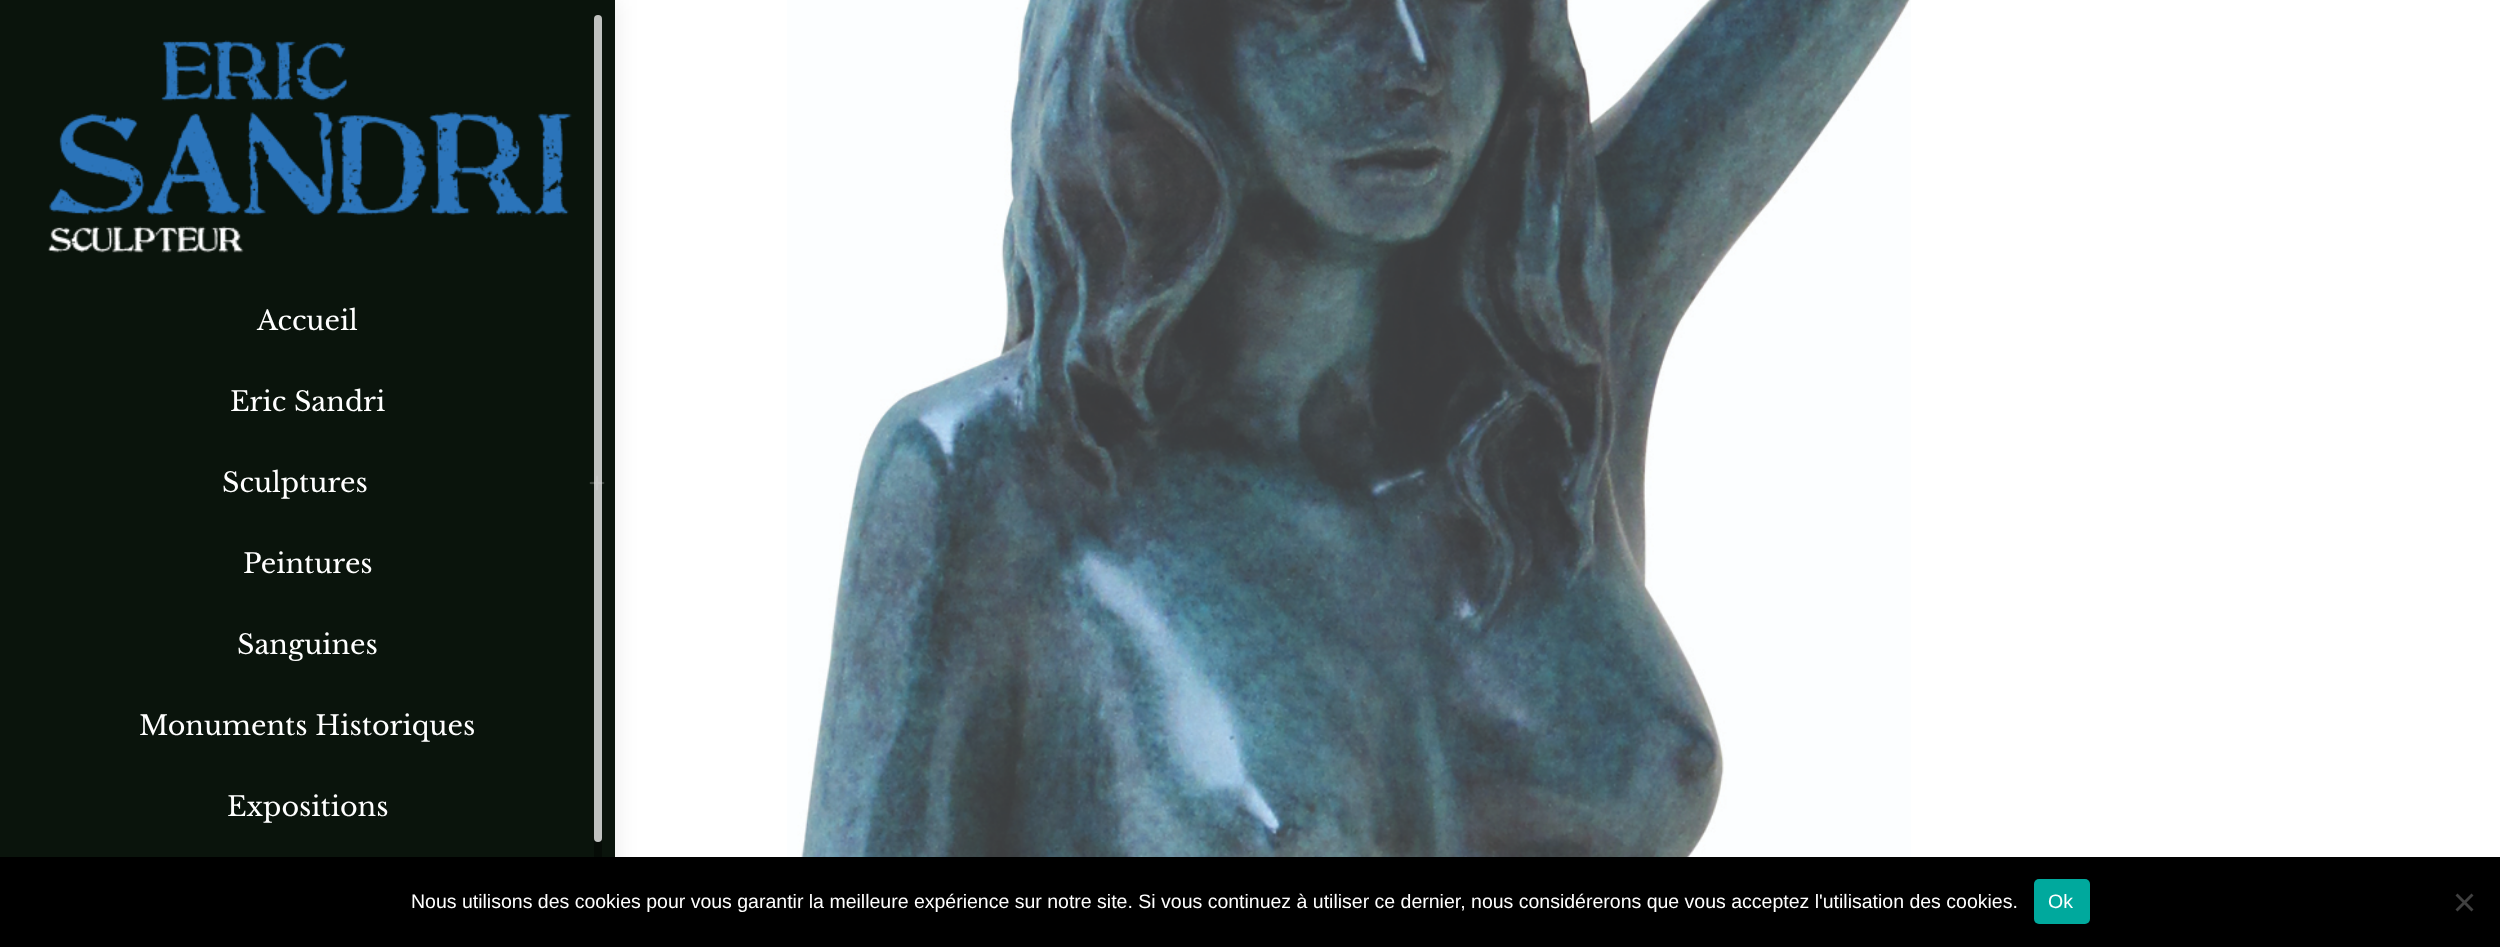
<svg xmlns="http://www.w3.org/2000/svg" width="2500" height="947">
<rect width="100%" height="100%" fill="#fff"/>
<rect x="-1" y="-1" width="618" height="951" fill="#00000012" filter="blur(11px)"/>
<rect width="615" height="857" fill="#0a140c"/>
<image x="48" y="40" width="524" height="213" href="media/1.png"/>
<text x="257" y="330" style="font-family:Libre Baskerville;font-size:27px;fill:#fff">Accueil</text>
<text x="230" y="411" style="font-family:Libre Baskerville;font-size:27px;fill:#fff">Eric Sandri</text>
<text x="222" y="492" style="font-family:Libre Baskerville;font-size:27px;fill:#fff">Sculptures</text>
<image x="589" y="475" width="16" height="16" href="media/2.png"/>
<text x="243" y="573" style="font-family:Libre Baskerville;font-size:27px;fill:#fff">Peintures</text>
<text x="237" y="654" style="font-family:Libre Baskerville;font-size:27px;fill:#fff">Sanguines</text>
<text x="139" y="735" style="font-family:Libre Baskerville;font-size:27px;fill:#fff">Monuments Historiques</text>
<text x="227" y="816" style="font-family:Libre Baskerville;font-size:27px;fill:#fff">Expositions</text>
<rect x="594" y="15" width="8" height="918" rx="4" fill="#00000066"/>
<rect x="594" y="15" width="8" height="827" rx="4" fill="#ffffffbf"/>
<image x="787" y="0" width="1124" height="857" href="media/3.png"/>
<rect y="857" width="2500" height="90" fill="#000"/>
<text x="411" y="908" style="font-family:Liberation Sans;font-size:19.5px;fill:#fff">Nous utilisons des cookies pour vous garantir la meilleure expérience sur notre site. Si vous continuez à utiliser ce dernier, nous considérerons que vous acceptez l'utilisation des cookies.</text>
<rect x="2034" y="879" width="56" height="45" rx="5" fill="#00a99d"/>
<text x="2048" y="908" style="font-family:Liberation Sans;font-size:19.5px;fill:#fff">Ok</text>
<path d="M2471.5 893.5l2 2l-16 16l-2-2z" fill="#404040"/>
<path d="M2455.5 895.5l2-2l16 16l-2 2z" fill="#404040"/>
</svg>
